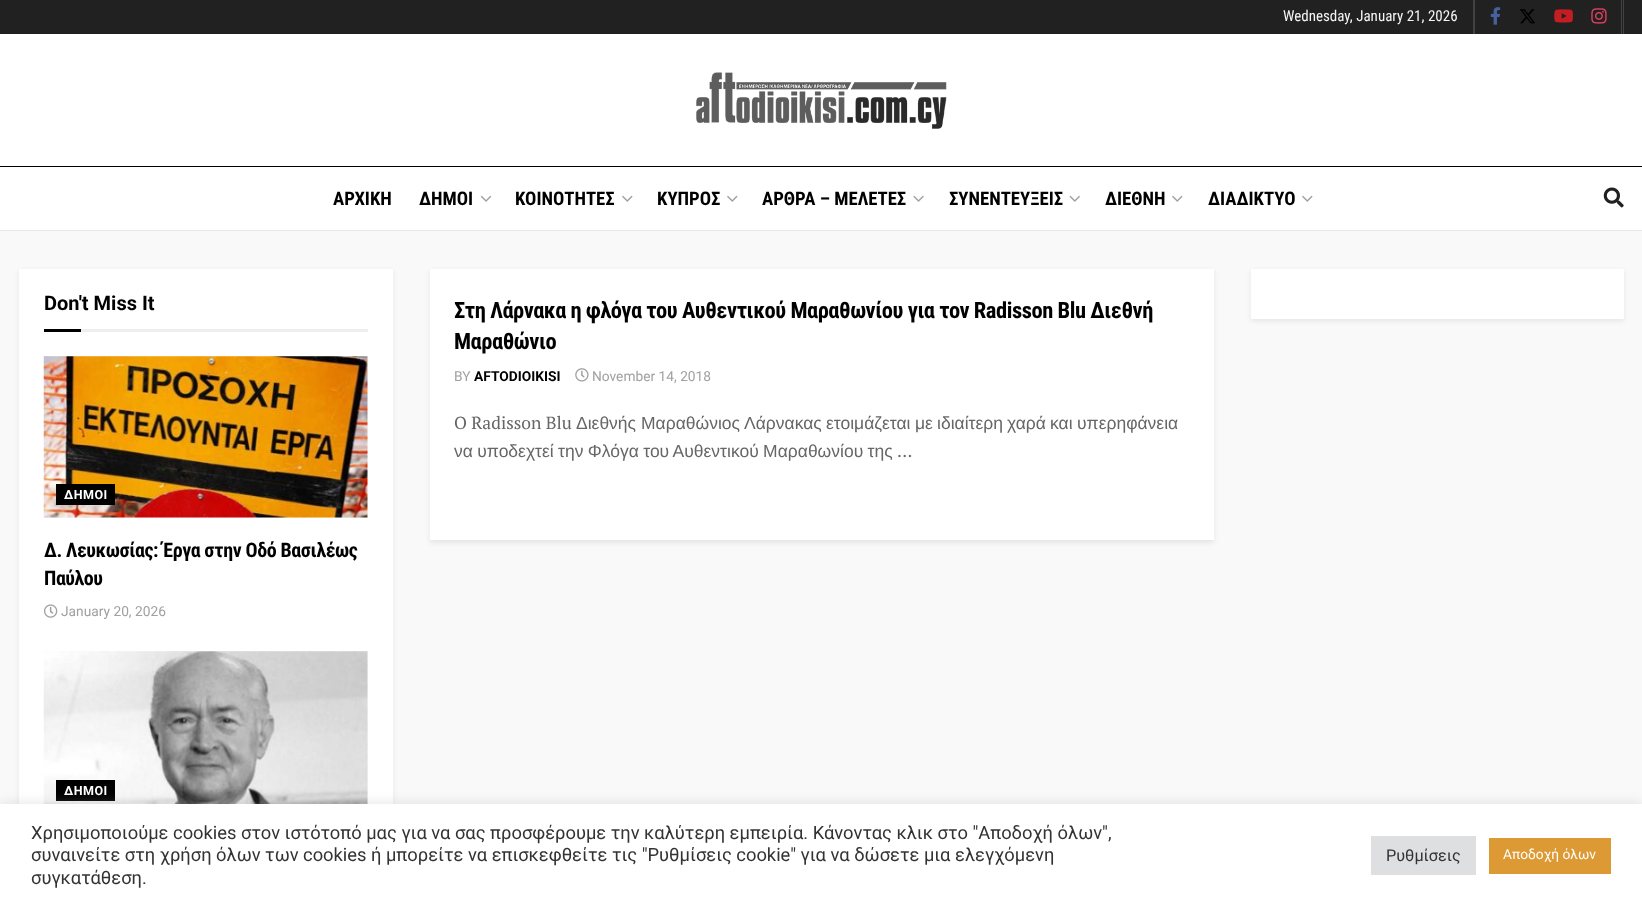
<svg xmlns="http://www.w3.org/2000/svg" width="1642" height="906">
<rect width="100%" height="100%" fill="#fff"/>
<rect width="1642" height="34" fill="#212121"/>
<rect x="1623" width="1" height="34" fill="#424242"/>
<rect x="1621" width="1" height="34" fill="#424242"/>
<rect x="1473" width="2" height="34" fill="#424242"/>
<text x="1283" y="21" style="font-family:Roboto Condensed;font-size:15px;fill:#f5f5f5">Wednesday, January 21, 2026</text>
<image x="1490" y="7" width="11" height="18" href="media/1.png"/>
<image x="1520" y="9" width="15" height="15" href="media/2.png"/>
<image x="1554" y="9" width="19" height="14" href="media/3.png"/>
<image x="1591" y="8" width="16" height="16" href="media/4.png"/>
<image x="696" y="72" width="251" height="57" href="media/5.png"/>
<rect y="166" width="1642" height="1" fill="#000"/>
<rect y="230" width="1642" height="1" fill="#e8e8e8"/>
<text x="333" y="205" style="font-family:Roboto Condensed;font-size:18.75px;font-weight:bold;fill:#000">ΑΡΧΙΚΗ</text>
<text x="419" y="205" style="font-family:Roboto Condensed;font-size:18.75px;font-weight:bold;fill:#000">ΔΗΜΟΙ</text>
<image x="480" y="195" width="12" height="7" href="media/6.png"/>
<text x="515" y="205" style="font-family:Roboto Condensed;font-size:18.75px;font-weight:bold;fill:#000">ΚΟΙΝΟΤΗΤΕΣ</text>
<image x="622" y="195" width="11" height="7" href="media/7.png"/>
<text x="657" y="205" style="font-family:Roboto Condensed;font-size:18.75px;font-weight:bold;fill:#000">ΚΥΠΡΟΣ</text>
<image x="727" y="195" width="11" height="7" href="media/7.png"/>
<text x="762" y="205" style="font-family:Roboto Condensed;font-size:18.75px;font-weight:bold;fill:#000">ΑΡΘΡΑ – ΜΕΛΕΤΕΣ</text>
<image x="913" y="195" width="11" height="7" href="media/8.png"/>
<text x="949" y="205" style="font-family:Roboto Condensed;font-size:18.75px;font-weight:bold;fill:#000">ΣΥΝΕΝΤΕΥΞΕΙΣ</text>
<image x="1069" y="195" width="11" height="7" href="media/9.png"/>
<text x="1105" y="205" style="font-family:Roboto Condensed;font-size:18.75px;font-weight:bold;fill:#000">ΔΙΕΘΝΗ</text>
<image x="1172" y="195" width="11" height="7" href="media/7.png"/>
<text x="1208" y="205" style="font-family:Roboto Condensed;font-size:18.75px;font-weight:bold;fill:#000">ΔΙΑΔΙΚΤΥΟ</text>
<image x="1302" y="195" width="11" height="7" href="media/7.png"/>
<image x="1603" y="187" width="21" height="21" href="media/10.png"/>
<rect y="231" width="1642" height="573" fill="#f9f9f9"/>
<rect x="19" y="271" width="374" height="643" fill="#00000014" filter="blur(2.5px)"/>
<rect x="19" y="269" width="374" height="535" fill="#fff"/>
<rect x="81" y="329" width="287" height="3" fill="#eee"/>
<text x="44" y="310" style="font-family:Roboto;font-size:20px;font-weight:bold;fill:#000">Don't Miss It</text>
<rect x="44" y="329" width="37" height="3" fill="#000"/>
<rect x="44" y="356" width="324" height="162" fill="#f7f7f7"/>
<image x="43" y="356" width="325" height="162" href="media/11.png"/>
<rect x="56" y="484" width="59" height="21" fill="#000"/>
<text x="64" y="499" style="font-family:Roboto;font-size:12.5px;font-weight:bold;letter-spacing:0.5px;fill:#fff">ΔΗΜΟΙ</text>
<text x="44" y="557" style="font-family:Roboto Condensed;font-size:20px;font-weight:bold;letter-spacing:-0.4px;fill:#000">Δ. Λευκωσίας: Έργα στην Οδό Βασιλέως</text>
<text x="44" y="585" style="font-family:Roboto Condensed;font-size:20px;font-weight:bold;letter-spacing:-0.4px;fill:#000">Παύλου</text>
<image x="44" y="604" width="14" height="14" href="media/12.png"/>
<text x="61" y="616" style="font-family:Roboto;font-size:13.75px;fill:#a0a0a0">January 20, 2026</text>
<rect x="44" y="651" width="324" height="153" fill="#f7f7f7"/>
<image x="43" y="651" width="325" height="153" href="media/13.png"/>
<rect x="56" y="780" width="59" height="21" fill="#000"/>
<text x="64" y="795" style="font-family:Roboto;font-size:12.5px;font-weight:bold;letter-spacing:0.5px;fill:#fff">ΔΗΜΟΙ</text>
<rect x="430" y="271" width="784" height="272" fill="#00000014" filter="blur(2.5px)"/>
<rect x="430" y="269" width="784" height="271" fill="#fff"/>
<text x="454" y="318" style="font-family:Roboto Condensed;font-size:22.5px;font-weight:bold;letter-spacing:-0.45px;fill:#000">Στη Λάρνακα η φλόγα του Αυθεντικού Μαραθωνίου για τον Radisson Blu Διεθνή</text>
<text x="454" y="349" style="font-family:Roboto Condensed;font-size:22.5px;font-weight:bold;letter-spacing:-0.45px;fill:#000">Μαραθώνιο</text>
<text x="454" y="381" style="font-family:Roboto;font-size:13.75px;fill:#a0a0a0">BY</text>
<text x="474" y="381" style="font-family:Roboto;font-size:13.75px;font-weight:bold;fill:#000">AFTODIOIKISI</text>
<image x="575" y="368" width="14" height="14" href="media/14.png"/>
<text x="592" y="381" style="font-family:Roboto;font-size:13.75px;fill:#a0a0a0">November 14, 2018</text>
<text x="454" y="429" style="font-family:PT Serif;font-size:17.5px;fill:#666">O Radisson Blu</text>
<text x="576" y="429" style="font-family:Liberation Sans;font-size:17.5px;fill:#666">Διεθνής</text>
<text x="641" y="429" style="font-family:Liberation Sans;font-size:17.5px;fill:#666">Μαραθώνιος</text>
<text x="744" y="429" style="font-family:Liberation Sans;font-size:17.5px;fill:#666">Λάρνακας</text>
<text x="826" y="429" style="font-family:Liberation Sans;font-size:17.5px;fill:#666">ετοιμάζεται</text>
<text x="915" y="429" style="font-family:Liberation Sans;font-size:17.5px;fill:#666">με</text>
<text x="937" y="429" style="font-family:Liberation Sans;font-size:17.5px;fill:#666">ιδιαίτερη</text>
<text x="1007" y="429" style="font-family:Liberation Sans;font-size:17.5px;fill:#666">χαρά</text>
<text x="1050" y="429" style="font-family:Liberation Sans;font-size:17.5px;fill:#666">και</text>
<text x="1077" y="429" style="font-family:Liberation Sans;font-size:17.5px;fill:#666">υπερηφάνεια</text>
<text x="454" y="457" word-spacing="-0.5" style="font-family:Liberation Sans;font-size:17.5px;fill:#666">να υποδεχτεί την Φλόγα του Αυθεντικού Μαραθωνίου της</text>
<text x="897" y="457" style="font-family:PT Serif;font-size:17.5px;fill:#666">...</text>
<rect x="1251" y="271" width="373" height="50" fill="#00000014" filter="blur(2.5px)"/>
<rect x="1251" y="269" width="373" height="50" fill="#fff"/>
<rect y="803" width="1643" height="102" fill="#acabab4d" filter="blur(6px)"/>
<rect y="804" width="1642" height="102" fill="#fff"/>
<text x="31" y="839" style="font-family:Roboto;font-size:18.33px;fill:#333">Χρησιμοποιούμε cookies στον ιστότοπό μας για να σας προσφέρουμε την καλύτερη εμπειρία. Κάνοντας κλικ στο "Αποδοχή όλων",</text>
<text x="31" y="861" style="font-family:Roboto;font-size:18.33px;fill:#333">συναινείτε στη χρήση όλων των cookies ή μπορείτε να επισκεφθείτε τις "Ρυθμίσεις cookie" για να δώσετε μια ελεγχόμενη</text>
<text x="31" y="884" style="font-family:Roboto;font-size:18.33px;fill:#333">συγκατάθεση.</text>
<rect x="1371" y="836" width="105" height="39" fill="#dedfe0"/>
<text x="1386" y="861" style="font-family:Roboto;font-size:16.25px;fill:#333">Ρυθμίσεις</text>
<rect x="1489" y="838" width="122" height="36" fill="#d93"/>
<text x="1503" y="859" style="font-family:Roboto;font-size:13.75px;fill:#fff">Αποδοχή όλων</text>
</svg>
